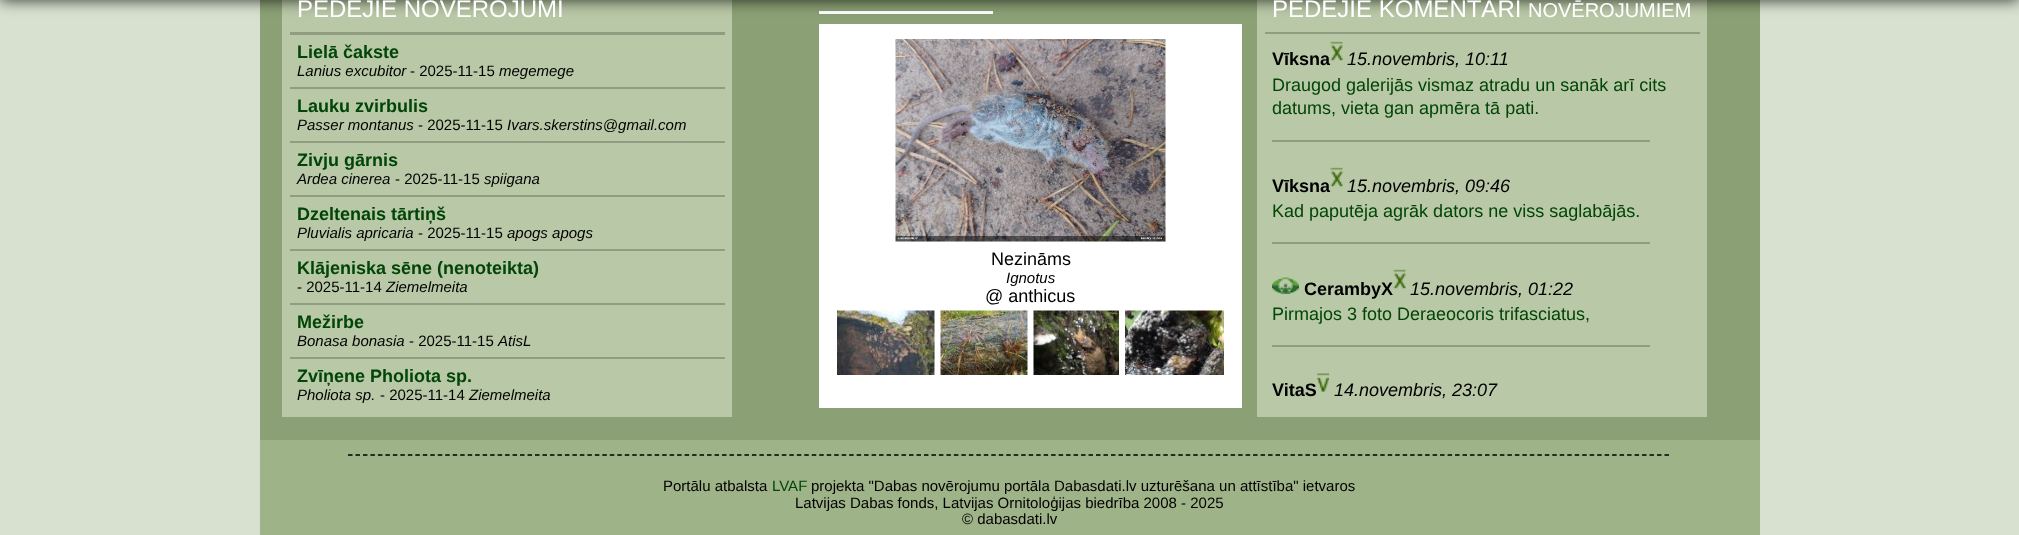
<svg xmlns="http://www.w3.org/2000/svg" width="2019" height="535">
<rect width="100%" height="100%" fill="#d8e1d0"/>
<rect x="260" width="1500" height="440" fill="#8ba075"/>
<rect x="282" width="450" height="417" fill="#b9c8a7"/>
<rect x="819" y="11" width="174" height="3" fill="#fff"/>
<rect x="1257" width="450" height="417" fill="#b9c8a7"/>
<rect y="-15" width="2019" height="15" fill="#000000cc" filter="blur(7.5px)"/>
<rect x="290" y="32" width="435" height="3" fill="#909d81"/>
<text x="297" y="17" style="font-family:Liberation Sans;font-size:24px;fill:#fff">PĒDĒJIE NOVĒROJUMI</text>
<text x="297" y="58" style="font-family:Liberation Sans;font-size:18px;font-weight:bold;fill:#014507">Lielā čakste</text>
<text x="297" y="76" style="font-family:Liberation Sans;font-size:15px;font-style:italic;fill:#000">Lanius excubitor</text>
<text x="410" y="76" style="font-family:Liberation Sans;font-size:15px;fill:#000">- 2025-11-15</text>
<text x="499" y="76" style="font-family:Liberation Sans;font-size:15px;font-style:italic;fill:#000">megemege</text>
<rect x="290" y="87" width="435" height="2" fill="#909d81"/>
<text x="297" y="112" style="font-family:Liberation Sans;font-size:18px;font-weight:bold;fill:#014507">Lauku zvirbulis</text>
<text x="297" y="130" style="font-family:Liberation Sans;font-size:15px;font-style:italic;fill:#000">Passer montanus</text>
<text x="418" y="130" style="font-family:Liberation Sans;font-size:15px;fill:#000">- 2025-11-15</text>
<text x="507" y="130" style="font-family:Liberation Sans;font-size:15px;font-style:italic;fill:#000">Ivars.skerstins@gmail.com</text>
<rect x="290" y="141" width="435" height="2" fill="#909d81"/>
<text x="297" y="166" style="font-family:Liberation Sans;font-size:18px;font-weight:bold;fill:#014507">Zivju gārnis</text>
<text x="297" y="184" style="font-family:Liberation Sans;font-size:15px;font-style:italic;fill:#000">Ardea cinerea</text>
<text x="395" y="184" style="font-family:Liberation Sans;font-size:15px;fill:#000">- 2025-11-15</text>
<text x="484" y="184" style="font-family:Liberation Sans;font-size:15px;font-style:italic;fill:#000">spiigana</text>
<rect x="290" y="195" width="435" height="2" fill="#909d81"/>
<text x="297" y="220" style="font-family:Liberation Sans;font-size:18px;font-weight:bold;fill:#014507">Dzeltenais tārtiņš</text>
<text x="297" y="238" style="font-family:Liberation Sans;font-size:15px;font-style:italic;fill:#000">Pluvialis apricaria</text>
<text x="418" y="238" style="font-family:Liberation Sans;font-size:15px;fill:#000">- 2025-11-15</text>
<text x="507" y="238" style="font-family:Liberation Sans;font-size:15px;font-style:italic;fill:#000">apogs apogs</text>
<rect x="290" y="249" width="435" height="2" fill="#909d81"/>
<text x="297" y="274" style="font-family:Liberation Sans;font-size:18px;font-weight:bold;fill:#014507">Klājeniska sēne (nenoteikta)</text>
<text x="297" y="292" style="font-family:Liberation Sans;font-size:15px;fill:#000">- 2025-11-14</text>
<text x="386" y="292" style="font-family:Liberation Sans;font-size:15px;font-style:italic;fill:#000">Ziemelmeita</text>
<rect x="290" y="303" width="435" height="2" fill="#909d81"/>
<text x="297" y="328" style="font-family:Liberation Sans;font-size:18px;font-weight:bold;fill:#014507">Mežirbe</text>
<text x="297" y="346" style="font-family:Liberation Sans;font-size:15px;font-style:italic;fill:#000">Bonasa bonasia</text>
<text x="409" y="346" style="font-family:Liberation Sans;font-size:15px;fill:#000">- 2025-11-15</text>
<text x="498" y="346" style="font-family:Liberation Sans;font-size:15px;font-style:italic;fill:#000">AtisL</text>
<rect x="290" y="357" width="435" height="2" fill="#909d81"/>
<text x="297" y="382" style="font-family:Liberation Sans;font-size:18px;font-weight:bold;fill:#014507">Zvīņene Pholiota sp.</text>
<text x="297" y="400" style="font-family:Liberation Sans;font-size:15px;font-style:italic;fill:#000">Pholiota sp.</text>
<text x="380" y="400" style="font-family:Liberation Sans;font-size:15px;fill:#000">- 2025-11-14</text>
<text x="469" y="400" style="font-family:Liberation Sans;font-size:15px;font-style:italic;fill:#000">Ziemelmeita</text>
<rect x="819" y="24" width="423" height="384" fill="#fff"/>
<image x="895" y="39" width="271" height="203" href="media/1.png"/>
<text x="991" y="265" style="font-family:Liberation Sans;font-size:18px;fill:#000">Nezināms</text>
<text x="1006" y="283" style="font-family:Liberation Sans;font-size:15px;font-style:italic;fill:#000">Ignotus</text>
<text x="985" y="302" style="font-family:Liberation Sans;font-size:18px;fill:#000">@ anthicus</text>
<image x="837" y="310" width="98" height="65" href="media/2.png"/>
<image x="940" y="310" width="88" height="65" href="media/3.png"/>
<image x="1033" y="310" width="86" height="65" href="media/4.png"/>
<image x="1125" y="310" width="99" height="65" href="media/5.png"/>
<rect x="1265" y="32" width="435" height="2" fill="#909d81"/>
<text x="1272" y="17" style="font-family:Liberation Sans;font-size:24px;fill:#fff">PĒDĒJIE KOMENTĀRI</text>
<text x="1528" y="17" style="font-family:Liberation Sans;font-size:20px;fill:#fff">NOVĒROJUMIEM</text>
<text x="1272" y="65" style="font-family:Liberation Sans;font-size:18px;font-weight:bold;fill:#000">Vīksna</text>
<image x="1330" y="41" width="13" height="24" href="media/6.png"/>
<text x="1347" y="65" style="font-family:Liberation Sans;font-size:18px;font-style:italic;fill:#000">15.novembris, 10:11</text>
<text x="1272" y="91" style="font-family:Liberation Sans;font-size:18px;fill:#014507">Draugod galerijās vismaz atradu un sanāk arī cits</text>
<text x="1272" y="114" style="font-family:Liberation Sans;font-size:18px;fill:#014507">datums, vieta gan apmēra tā pati.</text>
<rect x="1272" y="140" width="378" height="2" fill="#909d81"/>
<text x="1272" y="192" style="font-family:Liberation Sans;font-size:18px;font-weight:bold;fill:#000">Vīksna</text>
<image x="1330" y="167" width="13" height="25" href="media/7.png"/>
<text x="1347" y="192" style="font-family:Liberation Sans;font-size:18px;font-style:italic;fill:#000">15.novembris, 09:46</text>
<text x="1272" y="217" style="font-family:Liberation Sans;font-size:18px;fill:#014507">Kad paputēja agrāk dators ne viss saglabājās.</text>
<rect x="1272" y="242" width="378" height="2" fill="#909d81"/>
<image x="1272" y="277" width="27" height="17" href="media/8.png"/>
<text x="1304" y="295" style="font-family:Liberation Sans;font-size:18px;font-weight:bold;fill:#000">CerambyX</text>
<image x="1393" y="269" width="13" height="20" href="media/9.png"/>
<text x="1410" y="295" style="font-family:Liberation Sans;font-size:18px;font-style:italic;fill:#000">15.novembris, 01:22</text>
<text x="1272" y="320" style="font-family:Liberation Sans;font-size:18px;fill:#014507">Pirmajos 3 foto Deraeocoris trifasciatus,</text>
<rect x="1272" y="345" width="378" height="2" fill="#909d81"/>
<text x="1272" y="396" style="font-family:Liberation Sans;font-size:18px;font-weight:bold;fill:#000">VitaS</text>
<image x="1317" y="373" width="12" height="19" href="media/10.png"/>
<text x="1334" y="396" style="font-family:Liberation Sans;font-size:18px;font-style:italic;fill:#000">14.novembris, 23:07</text>
<rect x="260" y="440" width="1500" height="95" fill="#9eb388"/>
<path d="M348 455h1323" fill="none" stroke="#000" stroke-width="1.5" stroke-dasharray="4.5 2.98"/>
<text x="663" y="491" style="font-family:Liberation Sans;font-size:15px;fill:#000">Portālu atbalsta</text>
<text x="772" y="491" style="font-family:Liberation Sans;font-size:15px;fill:#014507">LVAF</text>
<text x="811" y="491" style="font-family:Liberation Sans;font-size:15px;fill:#000">projekta "Dabas novērojumu portāla Dabasdati.lv uzturēšana un attīstība" ietvaros</text>
<text x="795" y="508" style="font-family:Liberation Sans;font-size:15px;fill:#000">Latvijas Dabas fonds, Latvijas Ornitoloģijas biedrība 2008 - 2025</text>
<text x="962" y="524" style="font-family:Liberation Sans;font-size:15px;fill:#000">© dabasdati.lv</text>
</svg>
